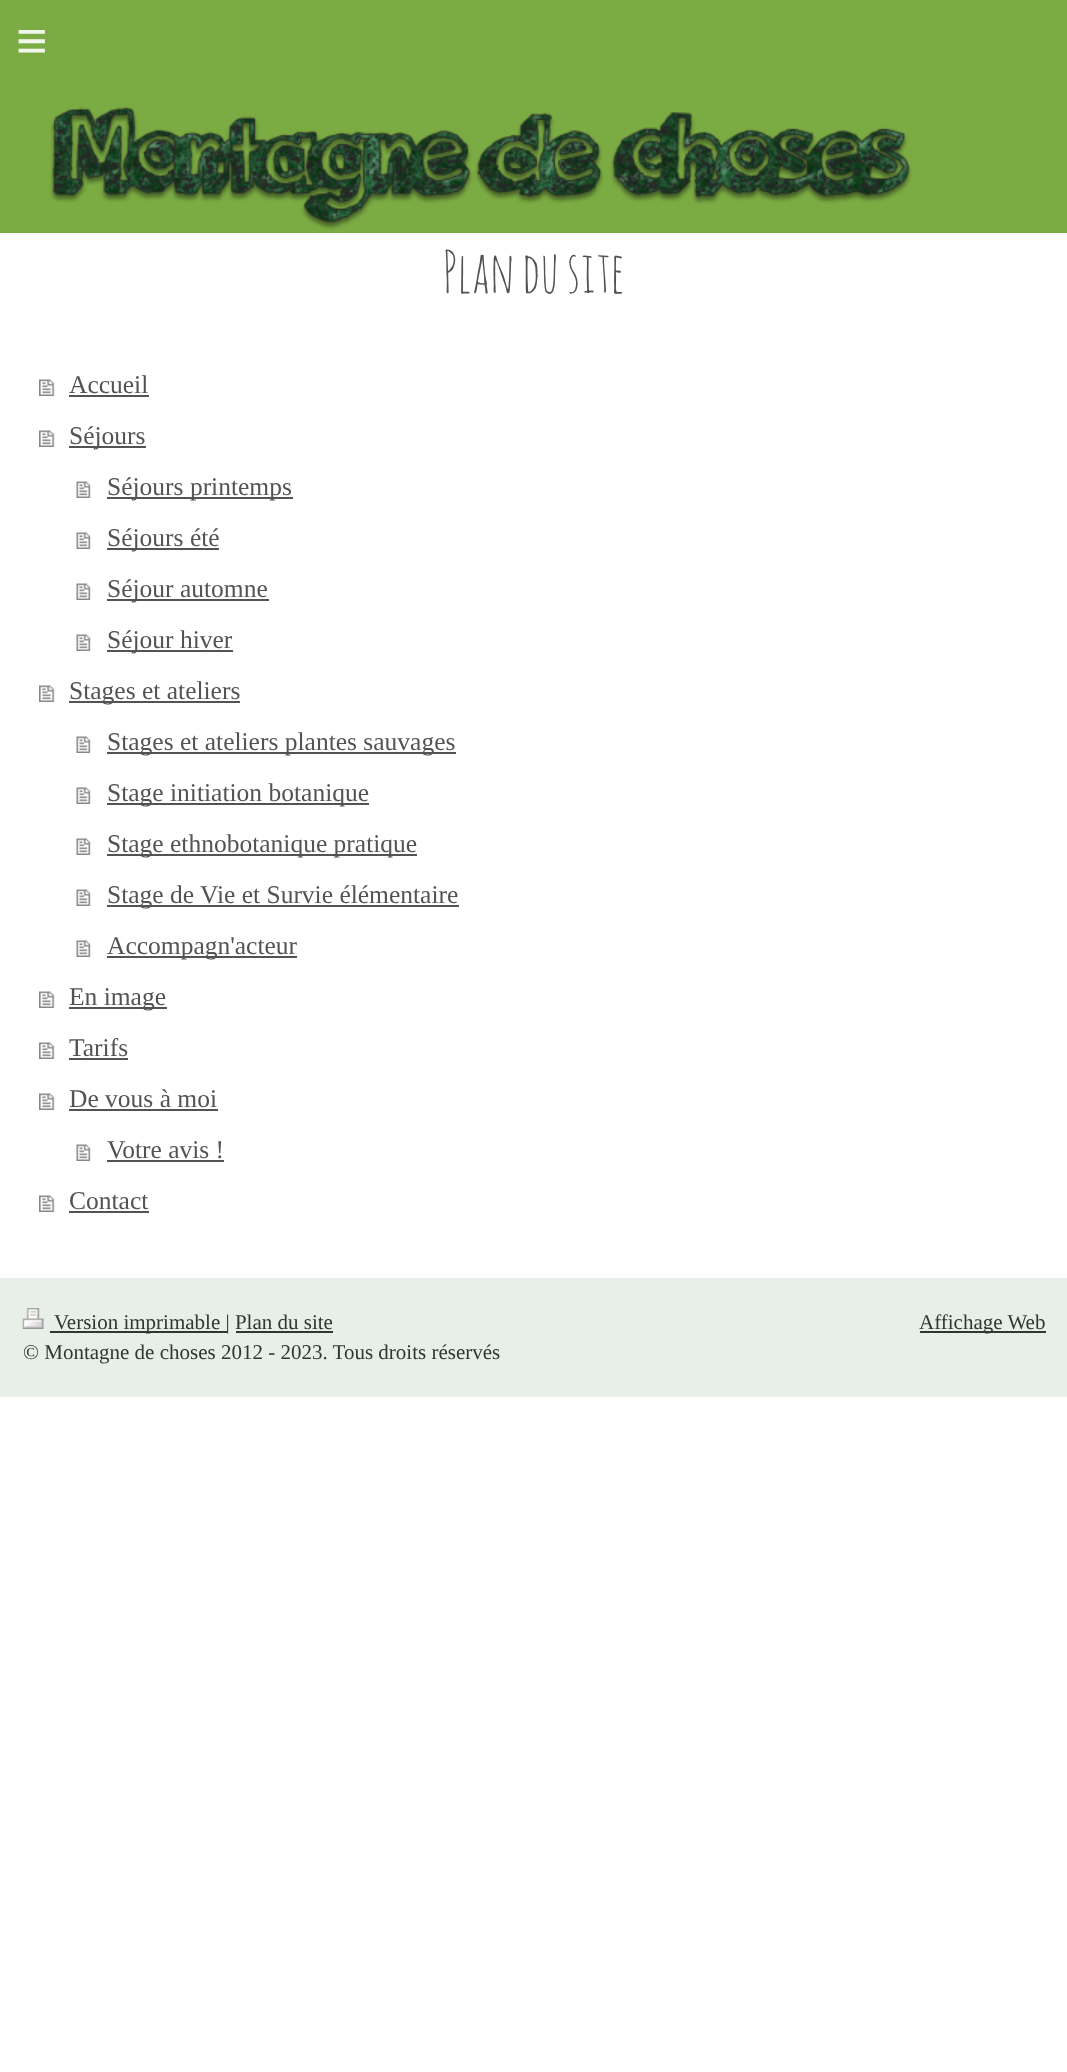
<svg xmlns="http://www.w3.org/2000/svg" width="1067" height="2072">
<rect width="100%" height="100%" fill="#fff"/>
<rect width="1067" height="233" fill="#7bab43"/>
<text x="16" y="59" style="font-family:Liberation Sans;font-size:54px;letter-spacing:16px;fill:#f2f7ec">≡</text>
<image x="50" y="106" width="862" height="124" href="media/1.png"/>
<text x="443" y="293" style="font-family:Amatic SC;font-size:57px;fill:#535353">Plan du site</text>
<image x="39" y="379" width="16" height="17" href="media/2.png"/>
<text x="69" y="393" style="font-family:Liberation Serif;font-size:25.5px;fill:#535353">Accueil</text>
<rect x="69" y="395" width="80" height="2" fill="#535353"/>
<image x="39" y="430" width="16" height="17" href="media/2.png"/>
<rect x="69" y="446" width="77" height="2" fill="#535353"/>
<text x="69" y="444" style="font-family:Liberation Serif;font-size:25.5px;fill:#535353">Séjours</text>
<image x="76" y="481" width="15" height="17" href="media/3.png"/>
<rect x="107" y="497" width="186" height="2" fill="#535353"/>
<text x="107" y="495" style="font-family:Liberation Serif;font-size:25.5px;fill:#535353">Séjours printemps</text>
<image x="76" y="532" width="15" height="17" href="media/3.png"/>
<rect x="107" y="548" width="112" height="2" fill="#535353"/>
<text x="107" y="546" style="font-family:Liberation Serif;font-size:25.5px;fill:#535353">Séjours été</text>
<image x="76" y="583" width="15" height="17" href="media/3.png"/>
<rect x="107" y="599" width="162" height="2" fill="#535353"/>
<text x="107" y="597" style="font-family:Liberation Serif;font-size:25.5px;fill:#535353">Séjour automne</text>
<image x="76" y="634" width="15" height="17" href="media/3.png"/>
<rect x="107" y="650" width="126" height="2" fill="#535353"/>
<text x="107" y="648" style="font-family:Liberation Serif;font-size:25.5px;fill:#535353">Séjour hiver</text>
<image x="39" y="685" width="16" height="17" href="media/2.png"/>
<rect x="69" y="701" width="171" height="2" fill="#535353"/>
<text x="69" y="699" style="font-family:Liberation Serif;font-size:25.5px;fill:#535353">Stages et ateliers</text>
<image x="76" y="736" width="15" height="17" href="media/3.png"/>
<rect x="107" y="752" width="349" height="2" fill="#535353"/>
<text x="107" y="750" style="font-family:Liberation Serif;font-size:25.5px;fill:#535353">Stages et ateliers plantes sauvages</text>
<image x="76" y="787" width="15" height="17" href="media/3.png"/>
<rect x="107" y="803" width="262" height="2" fill="#535353"/>
<text x="107" y="801" style="font-family:Liberation Serif;font-size:25.5px;fill:#535353">Stage initiation botanique</text>
<image x="76" y="838" width="15" height="17" href="media/3.png"/>
<rect x="107" y="854" width="310" height="2" fill="#535353"/>
<text x="107" y="852" style="font-family:Liberation Serif;font-size:25.5px;fill:#535353">Stage ethnobotanique pratique</text>
<image x="76" y="889" width="15" height="17" href="media/3.png"/>
<rect x="107" y="905" width="352" height="2" fill="#535353"/>
<text x="107" y="903" style="font-family:Liberation Serif;font-size:25.5px;fill:#535353">Stage de Vie et Survie élémentaire</text>
<image x="76" y="940" width="15" height="17" href="media/3.png"/>
<rect x="107" y="956" width="190" height="2" fill="#535353"/>
<text x="107" y="954" style="font-family:Liberation Serif;font-size:25.5px;fill:#535353">Accompagn'acteur</text>
<image x="39" y="991" width="16" height="17" href="media/2.png"/>
<rect x="69" y="1007" width="98" height="2" fill="#535353"/>
<text x="69" y="1005" style="font-family:Liberation Serif;font-size:25.5px;fill:#535353">En image</text>
<image x="39" y="1042" width="16" height="17" href="media/2.png"/>
<text x="69" y="1056" style="font-family:Liberation Serif;font-size:25.5px;fill:#535353">Tarifs</text>
<rect x="69" y="1058" width="59" height="2" fill="#535353"/>
<image x="39" y="1093" width="16" height="17" href="media/2.png"/>
<text x="69" y="1107" style="font-family:Liberation Serif;font-size:25.5px;fill:#535353">De vous à moi</text>
<rect x="69" y="1109" width="149" height="2" fill="#535353"/>
<image x="76" y="1144" width="15" height="17" href="media/3.png"/>
<text x="107" y="1158" style="font-family:Liberation Serif;font-size:25.5px;fill:#535353">Votre avis !</text>
<rect x="107" y="1160" width="117" height="2" fill="#535353"/>
<image x="39" y="1195" width="16" height="17" href="media/2.png"/>
<text x="69" y="1209" style="font-family:Liberation Serif;font-size:25.5px;fill:#535353">Contact</text>
<rect x="69" y="1211" width="80" height="2" fill="#535353"/>
<rect y="1278" width="1067" height="119" fill="#e8eee8"/>
<image x="22" y="1308" width="22" height="21" href="media/4.png"/>
<rect x="50" y="1331" width="177" height="2" fill="#2f382f"/>
<text x="54" y="1329" style="font-family:Liberation Serif;font-size:21px;fill:#2f382f">Version imprimable | Plan du site</text>
<rect x="236" y="1331" width="97" height="2" fill="#2f382f"/>
<text x="23" y="1359" style="font-family:Liberation Serif;font-size:21px;fill:#2f382f">© Montagne de choses 2012 - 2023. Tous droits réservés</text>
<rect x="920" y="1331" width="126" height="2" fill="#2f382f"/>
<text x="919" y="1329" style="font-family:Liberation Serif;font-size:21px;fill:#2f382f">Affichage Web</text>
</svg>
